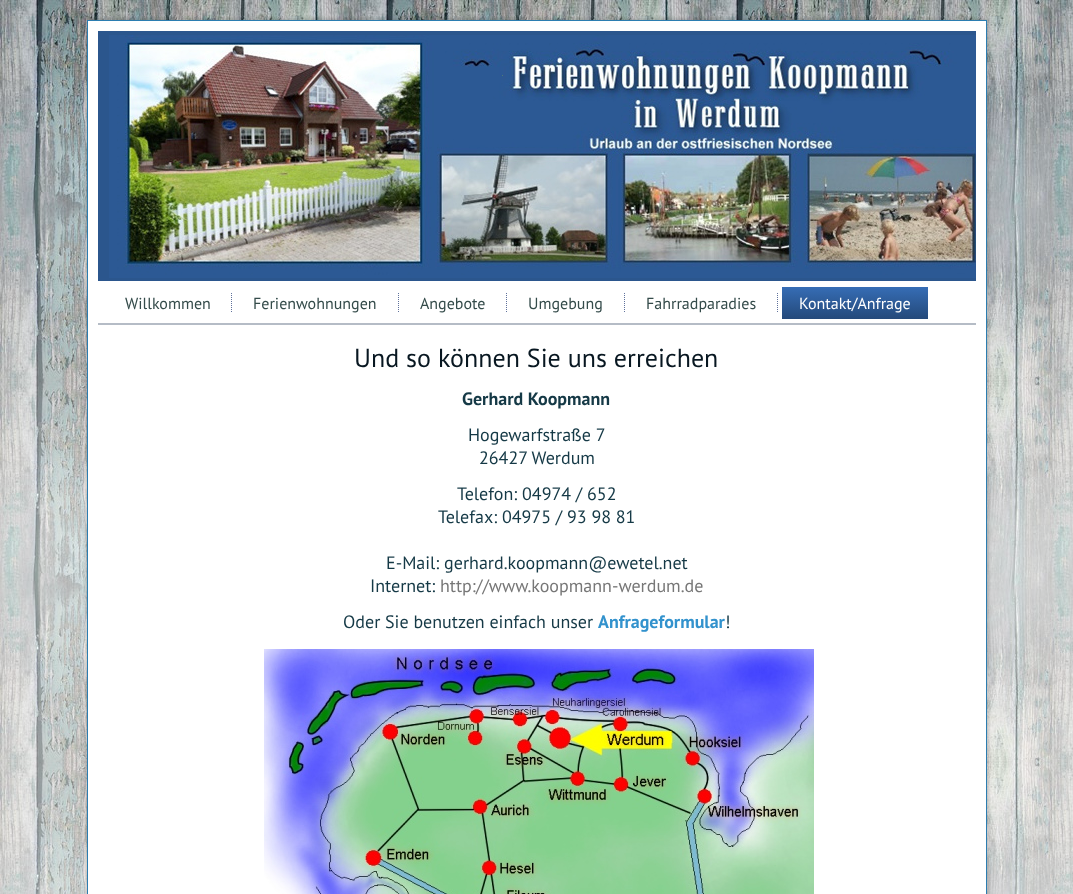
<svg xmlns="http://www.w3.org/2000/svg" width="1073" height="894">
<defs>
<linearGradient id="g1" gradientUnits="userSpaceOnUse" x1="855" y1="287" x2="855" y2="319"><stop offset="0" stop-color="#366db5"/><stop offset="1" stop-color="#24497a"/></linearGradient>
</defs>
<rect width="100%" height="100%" fill="#fff"/>
<image x="0" y="0" width="1073" height="894" href="media/1.png"/>
<rect x="85" y="18" width="904" height="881" fill="#00000026" filter="blur(1.5px)"/>
<rect x="88" y="21" width="898" height="873" fill="#fff"/>
<rect x="87" y="20" width="900" height="1" fill="#2b7db1"/>
<rect x="986" y="20" width="1" height="874" fill="#2b7db1"/>
<rect x="87" y="20" width="1" height="874" fill="#2b7db1"/>
<image x="98" y="31" width="878" height="250" href="media/2.png"/>
<rect x="502" y="75" width="1" height="1" fill="#4f7a78"/>
<rect x="98" y="323" width="878" height="2" fill="#b5bcc6"/>
<text x="125" y="309" style="font-family:PT Sans;font-size:16px;fill:#344b4a">Willkommen</text>
<image x="231" y="293" width="1" height="19" href="media/3.png"/>
<text x="253" y="309" style="font-family:PT Sans;font-size:16px;fill:#344b4a">Ferienwohnungen</text>
<image x="398" y="293" width="1" height="19" href="media/3.png"/>
<text x="420" y="309" style="font-family:PT Sans;font-size:16px;fill:#344b4a">Angebote</text>
<image x="506" y="293" width="1" height="19" href="media/3.png"/>
<text x="528" y="309" style="font-family:PT Sans;font-size:16px;fill:#344b4a">Umgebung</text>
<image x="624" y="293" width="1" height="19" href="media/3.png"/>
<text x="646" y="309" style="font-family:PT Sans;font-size:16px;fill:#344b4a">Fahrradparadies</text>
<image x="777" y="293" width="1" height="19" href="media/3.png"/>
<rect x="782" y="287" width="146" height="32" fill="url(#g1)"/>
<text x="799" y="309" style="font-family:PT Sans;font-size:16px;fill:#fff">Kontakt/Anfrage</text>
<text x="354" y="367" style="font-family:PT Sans;font-size:26px;fill:#081721">Und so können Sie uns erreichen</text>
<text x="462" y="405" style="font-family:PT Sans;font-size:18px;font-weight:bold;fill:#153946">Gerhard Koopmann</text>
<text x="468" y="441" style="font-family:PT Sans;font-size:18px;fill:#153946">Hogewarfstraße 7</text>
<text x="479" y="464" style="font-family:PT Sans;font-size:18px;fill:#153946">26427 Werdum</text>
<text x="457" y="500" style="font-family:PT Sans;font-size:18px;fill:#153946">Telefon: 04974 / 652</text>
<text x="438" y="523" style="font-family:PT Sans;font-size:18px;fill:#153946">Telefax: 04975 / 93 98 81</text>
<text x="386" y="569" style="font-family:PT Sans;font-size:18px;fill:#153946">E-Mail: gerhard.koopmann@ewetel.net</text>
<text x="370" y="592" style="font-family:PT Sans;font-size:18px;fill:#153946">Internet:</text>
<text x="440" y="592" style="font-family:PT Sans;font-size:18px;fill:#777">http://www.koopmann-werdum.de</text>
<text x="343" y="628" style="font-family:PT Sans;font-size:18px;fill:#153946">Oder Sie benutzen einfach unser</text>
<text x="598" y="628" style="font-family:PT Sans;font-size:18px;font-weight:bold;fill:#3292cd">Anfrageformular</text>
<text x="725" y="628" style="font-family:PT Sans;font-size:18px;fill:#153946">!</text>
<image x="264" y="649" width="550" height="245" href="media/4.png"/>
</svg>
